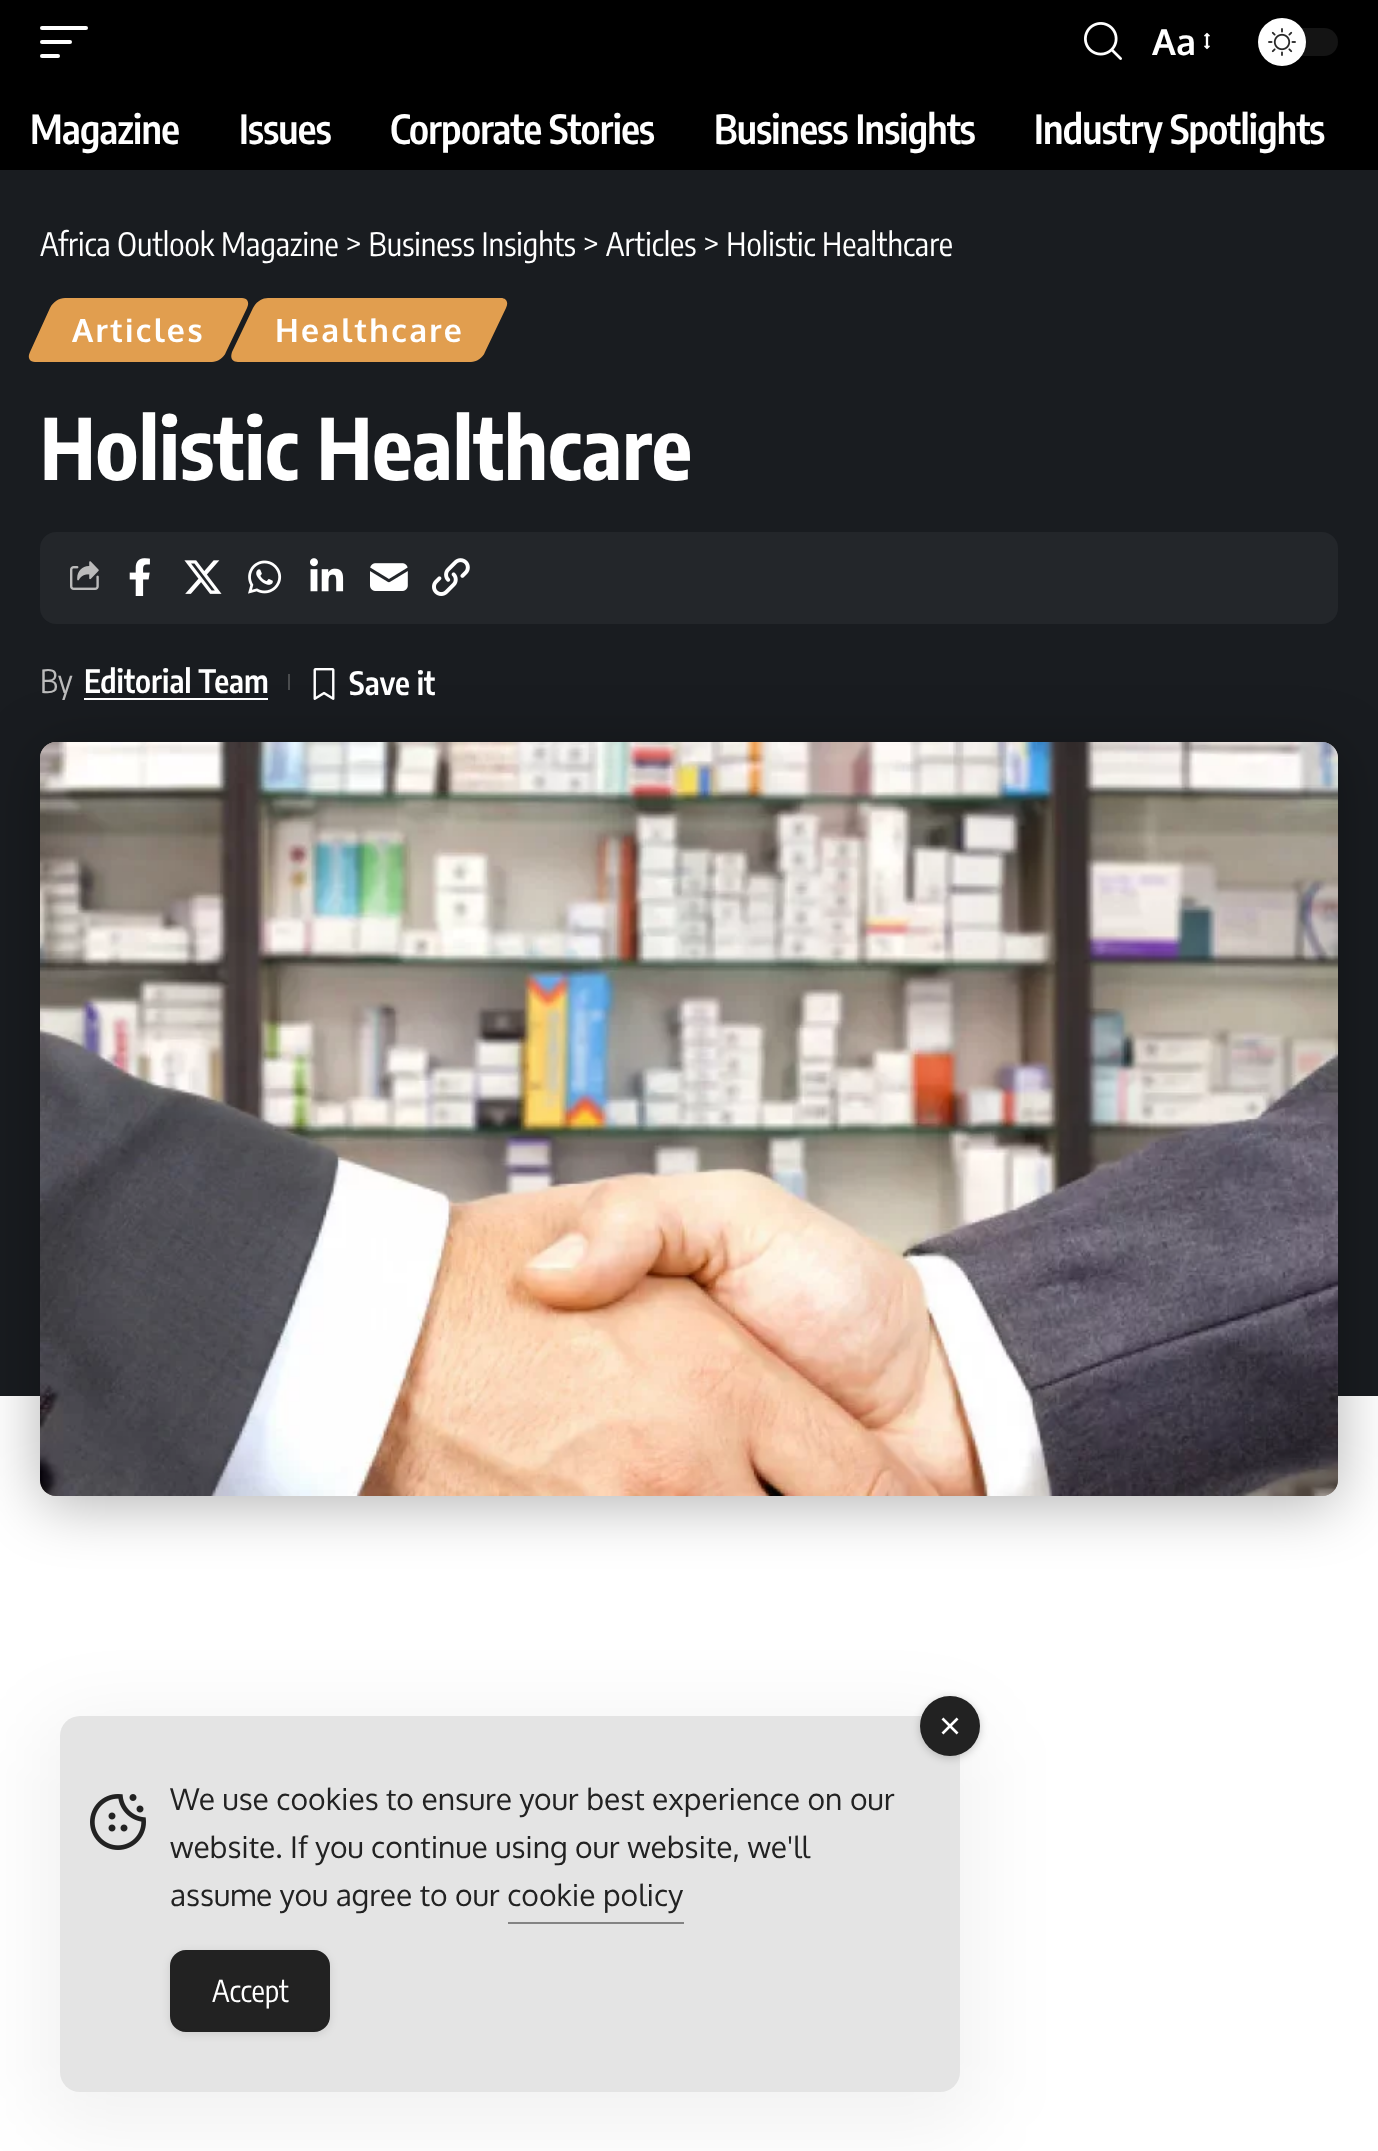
<svg xmlns="http://www.w3.org/2000/svg" width="1378" height="2151">
<rect width="100%" height="100%" fill="#fff"/>
<rect width="1378" height="170" fill="#000"/>
<rect x="40" y="26" width="48" height="4" rx="2" fill="#fff"/>
<rect x="40" y="40" width="32" height="4" rx="2" fill="#fff"/>
<rect x="40" y="54" width="20" height="4" rx="2" fill="#fff"/>
<image x="1084" y="22" width="38" height="38" href="media/1.png"/>
<text x="1152" y="55" style="font-family:Oxygen;font-size:36px;font-weight:bold;fill:#fff">Aa</text>
<image x="1204" y="32" width="6" height="18" href="media/2.png"/>
<rect x="1258" y="28" width="80" height="28" rx="14" fill="#141414"/>
<circle cx="1282" cy="42" r="24" fill="#fff"/>
<image x="1268" y="28" width="28" height="28" href="media/3.png"/>
<text x="30" y="144" style="font-family:Encode Sans Condensed;font-size:40px;font-weight:600;letter-spacing:-0.75px;fill:#fff">Magazine</text>
<text x="239" y="144" style="font-family:Encode Sans Condensed;font-size:40px;font-weight:600;letter-spacing:-0.75px;fill:#fff">Issues</text>
<text x="390" y="144" style="font-family:Encode Sans Condensed;font-size:40px;font-weight:600;letter-spacing:-0.75px;fill:#fff">Corporate Stories</text>
<text x="714" y="144" style="font-family:Encode Sans Condensed;font-size:40px;font-weight:600;letter-spacing:-0.75px;fill:#fff">Business Insights</text>
<text x="1034" y="144" style="font-family:Encode Sans Condensed;font-size:40px;font-weight:600;letter-spacing:-0.75px;fill:#fff">Industry Spotlights</text>
<rect y="170" width="1378" height="1226" fill="#191c20"/>
<text x="40" y="256" style="font-family:Encode Sans Condensed;font-size:32px;fill:#fff">Africa Outlook Magazine &gt; Business Insights &gt; Articles &gt; Holistic Healthcare</text>
<path d="M65 298h177c5 0 8 4 5 10l-21 44c-2 6-9 10-14 10h-177c-5 0-8-4-5-10l20-44c3-6 9-10 15-10z" fill="#e19e4f"/>
<text x="72" y="342" style="font-family:Oxygen;font-size:32px;font-weight:bold;letter-spacing:2.25px;fill:#fff">Articles</text>
<path d="M268 298h233c5 0 8 4 5 10l-21 44c-2 6-9 10-14 10h-233c-6 0-8-4-6-10l21-44c3-6 9-10 15-10z" fill="#e19e4f"/>
<text x="275" y="342" style="font-family:Oxygen;font-size:32px;font-weight:bold;letter-spacing:2.25px;fill:#fff">Healthcare</text>
<text x="40" y="480" style="font-family:Encode Sans Condensed;font-size:84px;font-weight:bold;fill:#fff">Holistic Healthcare</text>
<rect x="40" y="750" width="1298" height="754" rx="16" fill="#0000004d" filter="blur(30px)"/>
<rect x="40" y="742" width="1298" height="754" rx="16" fill="#a89d96"/>
<image x="40" y="742" width="1298" height="754" href="media/4.png"/>
<rect x="40" y="532" width="1298" height="92" rx="16" fill="#23262a"/>
<image x="70" y="561" width="29" height="29" href="media/5.png"/>
<image x="129" y="558" width="21" height="38" href="media/6.png"/>
<image x="184" y="560" width="38" height="34" href="media/7.png"/>
<image x="248" y="560" width="34" height="34" href="media/8.png"/>
<image x="310" y="558" width="34" height="34" href="media/9.png"/>
<image x="370" y="563" width="38" height="28" href="media/10.png"/>
<image x="432" y="558" width="38" height="38" href="media/11.png"/>
<text x="40" y="693" style="font-family:Encode Sans Condensed;font-size:32px;fill:#bbb">By</text>
<text x="84" y="693" style="font-family:Encode Sans Condensed;font-size:32px;font-weight:600;fill:#fff">Editorial Team</text>
<rect x="84" y="698" width="184" height="2" fill="#fff"/>
<rect x="288" y="674" width="2" height="16" fill="#4a4c4e"/>
<image x="313" y="668" width="22" height="32" href="media/12.png"/>
<text x="349" y="695" style="font-family:Encode Sans Condensed;font-size:32px;font-weight:600;fill:#fff">Save it</text>
<rect x="40" y="1716" width="940" height="416" rx="40" fill="#0000000d" filter="blur(40px)"/>
<rect x="60" y="1716" width="900" height="376" rx="20" fill="#e4e4e4"/>
<rect x="920" y="1698" width="60" height="60" rx="30" fill="#00000033" filter="blur(4px)"/>
<circle cx="950" cy="1726" r="30" fill="#222"/>
<image x="941" y="1717" width="18" height="18" href="media/13.png"/>
<image x="90" y="1794" width="56" height="56" href="media/14.png"/>
<text x="170" y="1810" style="font-family:Oxygen;font-size:30px;fill:#222">We use cookies to ensure your best experience on our</text>
<text x="170" y="1858" style="font-family:Oxygen;font-size:30px;fill:#222">website. If you continue using our website, we'll</text>
<text x="170" y="1906" style="font-family:Oxygen;font-size:30px;fill:#222">assume you agree to our cookie policy</text>
<rect x="508" y="1922" width="176" height="2" fill="#838383"/>
<rect x="170" y="1952" width="160" height="82" rx="16" fill="#0000001a" filter="blur(4px)"/>
<rect x="171" y="1951" width="158" height="80" rx="15" fill="#222" stroke="#222" stroke-width="2"/>
<text x="212" y="2002" style="font-family:Encode Sans Condensed;font-size:30px;fill:#fff">Accept</text>
</svg>
